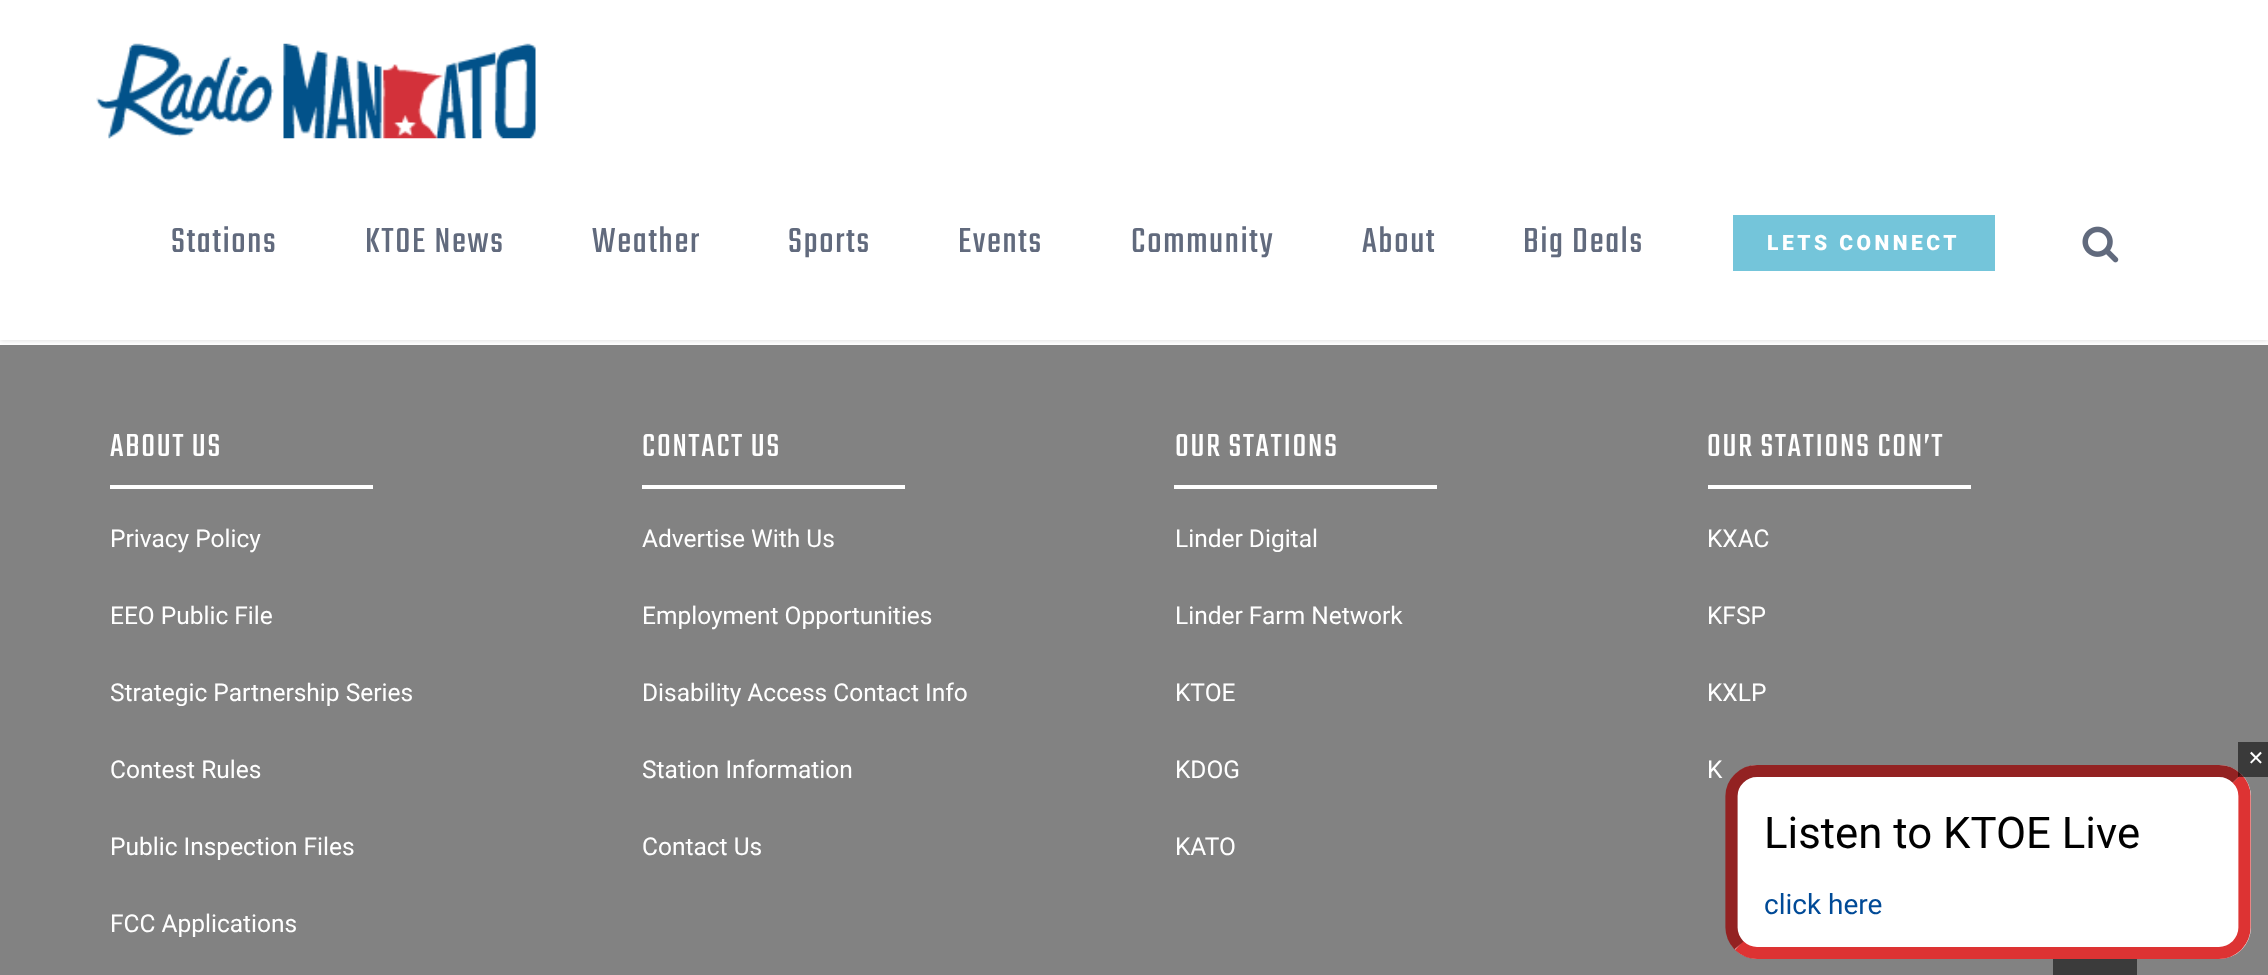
<svg xmlns="http://www.w3.org/2000/svg" width="2268" height="975">
<rect width="100%" height="100%" fill="#fff"/>
<rect y="345" width="2268" height="630" fill="#828282"/>
<rect y="2" width="2268" height="339" fill="#0000001f" filter="blur(2.5px)"/>
<rect width="2268" height="340" fill="#fff"/>
<image x="96" y="43" width="440" height="96" href="media/1.png"/>
<text x="171" y="252" style="font-family:Teko;font-size:38.5px;letter-spacing:1.75px;fill:#616a7d">Stations</text>
<text x="365" y="252" style="font-family:Teko;font-size:38.5px;letter-spacing:1.75px;fill:#616a7d">KTOE News</text>
<text x="592" y="252" style="font-family:Teko;font-size:38.5px;letter-spacing:1.75px;fill:#616a7d">Weather</text>
<text x="788" y="252" style="font-family:Teko;font-size:38.5px;letter-spacing:1.75px;fill:#616a7d">Sports</text>
<text x="958" y="252" style="font-family:Teko;font-size:38.5px;letter-spacing:1.75px;fill:#616a7d">Events</text>
<text x="1131" y="252" style="font-family:Teko;font-size:38.5px;letter-spacing:1.75px;fill:#616a7d">Community</text>
<text x="1362" y="252" style="font-family:Teko;font-size:38.5px;letter-spacing:1.75px;fill:#616a7d">About</text>
<text x="1523" y="252" style="font-family:Teko;font-size:38.5px;letter-spacing:1.75px;fill:#616a7d">Big Deals</text>
<rect x="1733" y="215" width="262" height="56" fill="#74c5da"/>
<text x="1767" y="250" style="font-family:Roboto;font-size:21px;font-weight:900;letter-spacing:3.5px;fill:#fff">LETS CONNECT</text>
<image x="2082" y="226" width="37" height="37" href="media/2.png"/>
<text x="110" y="456" style="font-family:Teko;font-size:35px;letter-spacing:1.75px;fill:#fff">ABOUT US</text>
<rect x="110" y="485" width="263" height="4" fill="#fff"/>
<text x="110" y="547" style="font-family:Roboto;font-size:24.5px;fill:#fff">Privacy Policy</text>
<text x="110" y="624" style="font-family:Roboto;font-size:24.5px;fill:#fff">EEO Public File</text>
<text x="110" y="701" style="font-family:Roboto;font-size:24.5px;fill:#fff">Strategic Partnership Series</text>
<text x="110" y="778" style="font-family:Roboto;font-size:24.5px;fill:#fff">Contest Rules</text>
<text x="110" y="855" style="font-family:Roboto;font-size:24.5px;fill:#fff">Public Inspection Files</text>
<text x="110" y="932" style="font-family:Roboto;font-size:24.5px;fill:#fff">FCC Applications</text>
<text x="642" y="456" style="font-family:Teko;font-size:35px;letter-spacing:1.75px;fill:#fff">CONTACT US</text>
<rect x="642" y="485" width="263" height="4" fill="#fff"/>
<text x="642" y="547" style="font-family:Roboto;font-size:24.5px;fill:#fff">Advertise With Us</text>
<text x="642" y="624" style="font-family:Roboto;font-size:24.5px;fill:#fff">Employment Opportunities</text>
<text x="642" y="701" style="font-family:Roboto;font-size:24.5px;fill:#fff">Disability Access Contact Info</text>
<text x="642" y="778" style="font-family:Roboto;font-size:24.5px;fill:#fff">Station Information</text>
<text x="642" y="855" style="font-family:Roboto;font-size:24.5px;fill:#fff">Contact Us</text>
<text x="1175" y="456" style="font-family:Teko;font-size:35px;letter-spacing:1.75px;fill:#fff">OUR STATIONS</text>
<rect x="1174" y="485" width="263" height="4" fill="#fff"/>
<text x="1175" y="547" style="font-family:Roboto;font-size:24.5px;fill:#fff">Linder Digital</text>
<text x="1175" y="624" style="font-family:Roboto;font-size:24.5px;fill:#fff">Linder Farm Network</text>
<text x="1175" y="701" style="font-family:Roboto;font-size:24.5px;fill:#fff">KTOE</text>
<text x="1175" y="778" style="font-family:Roboto;font-size:24.5px;fill:#fff">KDOG</text>
<text x="1175" y="855" style="font-family:Roboto;font-size:24.5px;fill:#fff">KATO</text>
<text x="1707" y="456" style="font-family:Teko;font-size:35px;letter-spacing:1.75px;fill:#fff">OUR STATIONS CON’T</text>
<rect x="1708" y="485" width="263" height="4" fill="#fff"/>
<text x="1707" y="547" style="font-family:Roboto;font-size:24.5px;fill:#fff">KXAC</text>
<text x="1707" y="624" style="font-family:Roboto;font-size:24.5px;fill:#fff">KFSP</text>
<text x="1707" y="701" style="font-family:Roboto;font-size:24.5px;fill:#fff">KXLP</text>
<text x="1707" y="778" style="font-family:Roboto;font-size:24.5px;fill:#fff">K</text>
<rect x="1726" y="765" width="525" height="194" rx="32" fill="#fff"/>
<rect x="2053" y="959" width="84" height="16" fill="#3b3b3b"/>
<path d="M2237 778.5c4.5 4.5 7.5 11 7.5 17.5v131.5c0 6.5-3 13-7.5 18c-5 4.5-11.5 7.5-18 7.5h-462c-6.5 0-13-3-18-7.5" fill="none" stroke="#d33" stroke-width="12.2"/>
<path d="M1739 945.5c-4.5-5-7.5-11.5-7.5-18v-131.5c0-6.5 3-13 7.5-17.5c5-5 11.5-7.5 18-7.5h462c6.5 0 13 2.5 18 7.5" fill="none" stroke="#932222" stroke-width="12.2"/>
<rect x="2238" y="742" width="30" height="35" fill="#0000008c"/>
<text x="2248" y="767" style="font-family:Liberation Serif;font-size:28px;font-weight:bold;fill:#fff">×</text>
<text x="1764" y="848" style="font-family:Roboto;font-size:43.75px;fill:#000">Listen to KTOE Live</text>
<text x="1764" y="914" style="font-family:Roboto;font-size:28px;fill:#004a97">click here</text>
</svg>
